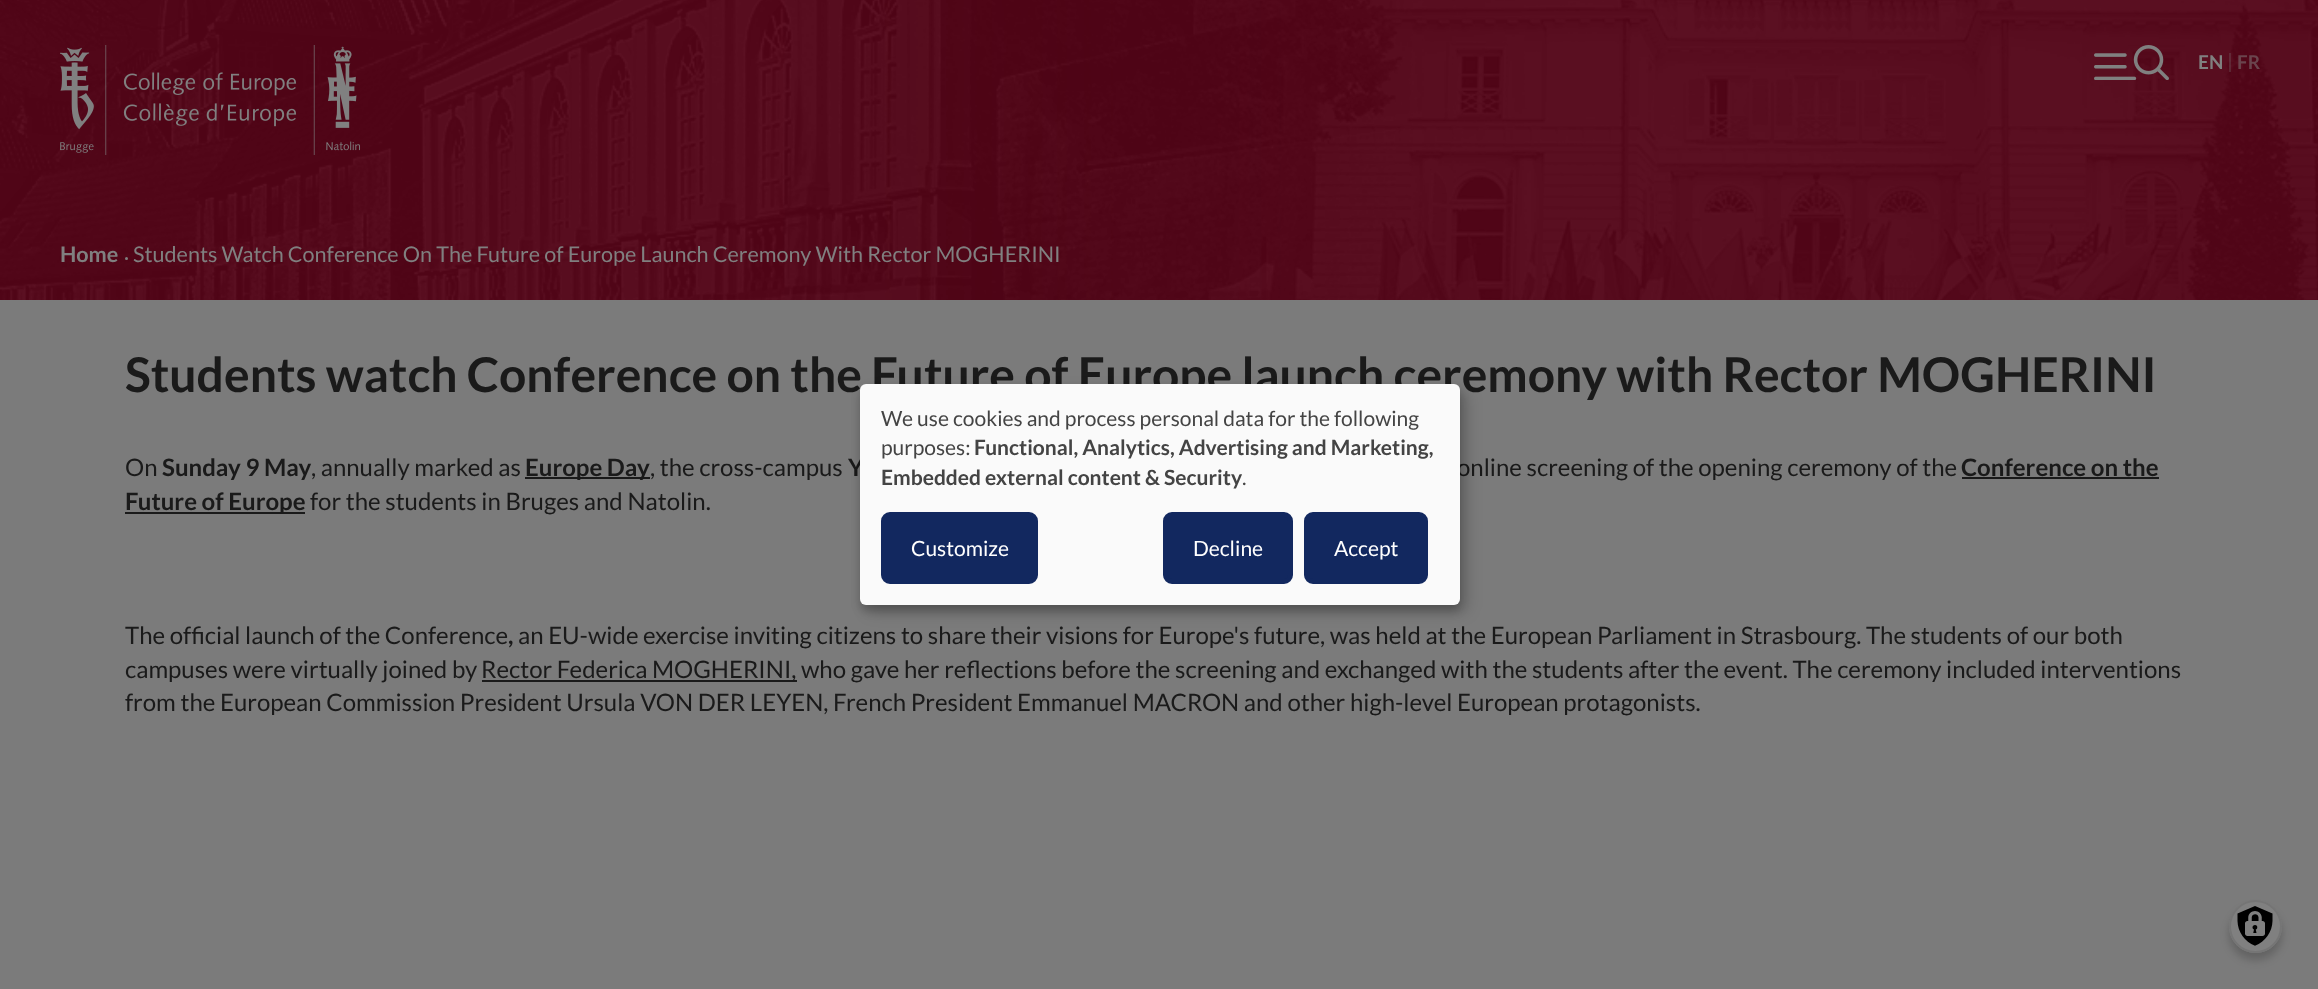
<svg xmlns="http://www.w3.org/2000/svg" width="2318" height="989">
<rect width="100%" height="100%" fill="#7b7b7b"/>
<rect width="2318" height="300" fill="#590519"/>
<image x="0" y="0" width="2318" height="300" href="media/2.png"/>
<image x="2094" y="45" width="75" height="35" href="media/1.png"/>
<image x="60" y="45" width="300" height="110" href="media/3.png"/>
<text x="2198" y="69" style="font-family:Lato;font-size:19px;font-weight:bold;fill:#808080">EN</text>
<rect x="2229" y="53" width="2" height="19" fill="#80808040"/>
<text x="2237" y="69" style="font-family:Lato;font-size:19px;font-weight:bold;fill:#6a444d">FR</text>
<text x="60" y="262" style="font-family:Lato;font-size:21.6px;font-weight:bold;fill:#808080">Home</text>
<circle cx="126.5" cy="258.5" r="1.5" fill="#808080"/>
<text x="133" y="262" style="font-family:Lato;font-size:21.6px;fill:#808080">Students Watch Conference On The Future of Europe Launch Ceremony With Rector MOGHERINI</text>
<text x="125" y="392" style="font-family:Lato;font-size:48px;font-weight:bold;fill:#1a1a1a">Students watch Conference on the Future of Europe launch ceremony with Rector MOGHERINI</text>
<text x="125" y="476" style="font-family:Lato;font-size:24px;fill:#1a1a1a">On</text>
<text x="162" y="476" style="font-family:Lato;font-size:24px;font-weight:bold;fill:#1a1a1a">Sunday 9 May</text>
<text x="311" y="476" style="font-family:Lato;font-size:24px;fill:#1a1a1a">, annually marked as</text>
<rect x="525" y="477" width="125" height="2" fill="#1a1a1a"/>
<text x="525" y="476" style="font-family:Lato;font-size:24px;font-weight:bold;fill:#1a1a1a">Europe Day</text>
<text x="650" y="476" style="font-family:Lato;font-size:24px;fill:#1a1a1a">, the cross-campus</text>
<text x="848" y="476" style="font-family:Lato;font-size:24px;font-weight:bold;fill:#1a1a1a">Y</text>
<text x="1457" y="476" style="font-family:Lato;font-size:24px;fill:#1a1a1a">online screening of the opening ceremony of the</text>
<text x="1961" y="476" style="font-family:Lato;font-size:24px;font-weight:bold;fill:#1a1a1a">Conference on the</text>
<rect x="1962" y="477" width="197" height="2" fill="#1a1a1a"/>
<rect x="125" y="512" width="180" height="2" fill="#1a1a1a"/>
<text x="125" y="510" style="font-family:Lato;font-size:24px;font-weight:bold;fill:#1a1a1a">Future of Europe</text>
<text x="310" y="510" style="font-family:Lato;font-size:24px;fill:#1a1a1a">for the students in Bruges and Natolin.</text>
<text x="125" y="644" style="font-family:Lato;font-size:24px;fill:#1a1a1a">The official launch of the Conference</text>
<text x="508" y="644" style="font-family:Lato;font-size:24px;font-weight:bold;fill:#1a1a1a">,</text>
<text x="518" y="644" style="font-family:Lato;font-size:24px;fill:#1a1a1a">an EU-wide exercise inviting citizens to share their visions for Europe's future, was held at the European Parliament in Strasbourg. The students of our both</text>
<text x="125" y="678" style="font-family:Lato;font-size:24px;fill:#1a1a1a">campuses were virtually joined by</text>
<rect x="482" y="680" width="315" height="2" fill="#1a1a1a"/>
<text x="481" y="678" style="font-family:Lato;font-size:24px;fill:#1a1a1a">Rector Federica MOGHERINI, who gave her reflections before the screening and exchanged with the students after the event. The ceremony included interventions</text>
<text x="125" y="711" style="font-family:Lato;font-size:24px;fill:#1a1a1a">from the European Commission President Ursula VON DER LEYEN, French President Emmanuel MACRON and other high-level European protagonists.</text>
<rect x="867" y="392" width="600" height="220" rx="6" fill="#00000030" filter="blur(7.5px)"/>
<rect x="860" y="390" width="600" height="221" rx="6" fill="#00000033" filter="blur(4.5px)"/>
<rect x="860" y="384" width="600" height="221" rx="6" fill="#fafafa"/>
<text x="881" y="426" style="font-family:Lato;font-size:21px;fill:#444">We use cookies and process personal data for the following</text>
<text x="881" y="455" style="font-family:Lato;font-size:21px;fill:#444">purposes:</text>
<text x="974" y="455" style="font-family:Lato;font-size:21px;font-weight:bold;fill:#444">Functional, Analytics, Advertising and Marketing,</text>
<text x="881" y="485" style="font-family:Lato;font-size:21px;font-weight:bold;fill:#444">Embedded external content &amp; Security</text>
<text x="1242" y="485" style="font-family:Lato;font-size:21px;fill:#444">.</text>
<rect x="883.5" y="514.5" width="152" height="67" rx="6.5" fill="#12285f" stroke="#12285f" stroke-width="5"/>
<text x="911" y="556" style="font-family:Lato;font-size:21px;fill:#fff">Customize</text>
<rect x="1165.5" y="514.5" width="125" height="67" rx="6.5" fill="#12285f" stroke="#12285f" stroke-width="5"/>
<text x="1193" y="556" style="font-family:Lato;font-size:21px;fill:#fff">Decline</text>
<rect x="1306.5" y="514.5" width="119" height="67" rx="6.5" fill="#12285f" stroke="#12285f" stroke-width="5"/>
<text x="1334" y="556" style="font-family:Lato;font-size:21px;fill:#fff">Accept</text>
<rect x="2229" y="908" width="53" height="52" rx="26" fill="#00000033" filter="blur(4px)"/>
<circle cx="2255.5" cy="926.5" r="26.5" fill="#808080"/>
<image x="2237" y="906" width="36" height="40" href="media/4.png"/>
<circle cx="2255.5" cy="926.5" r="25.5" fill="none" stroke="#757575" stroke-width="2"/>
</svg>
